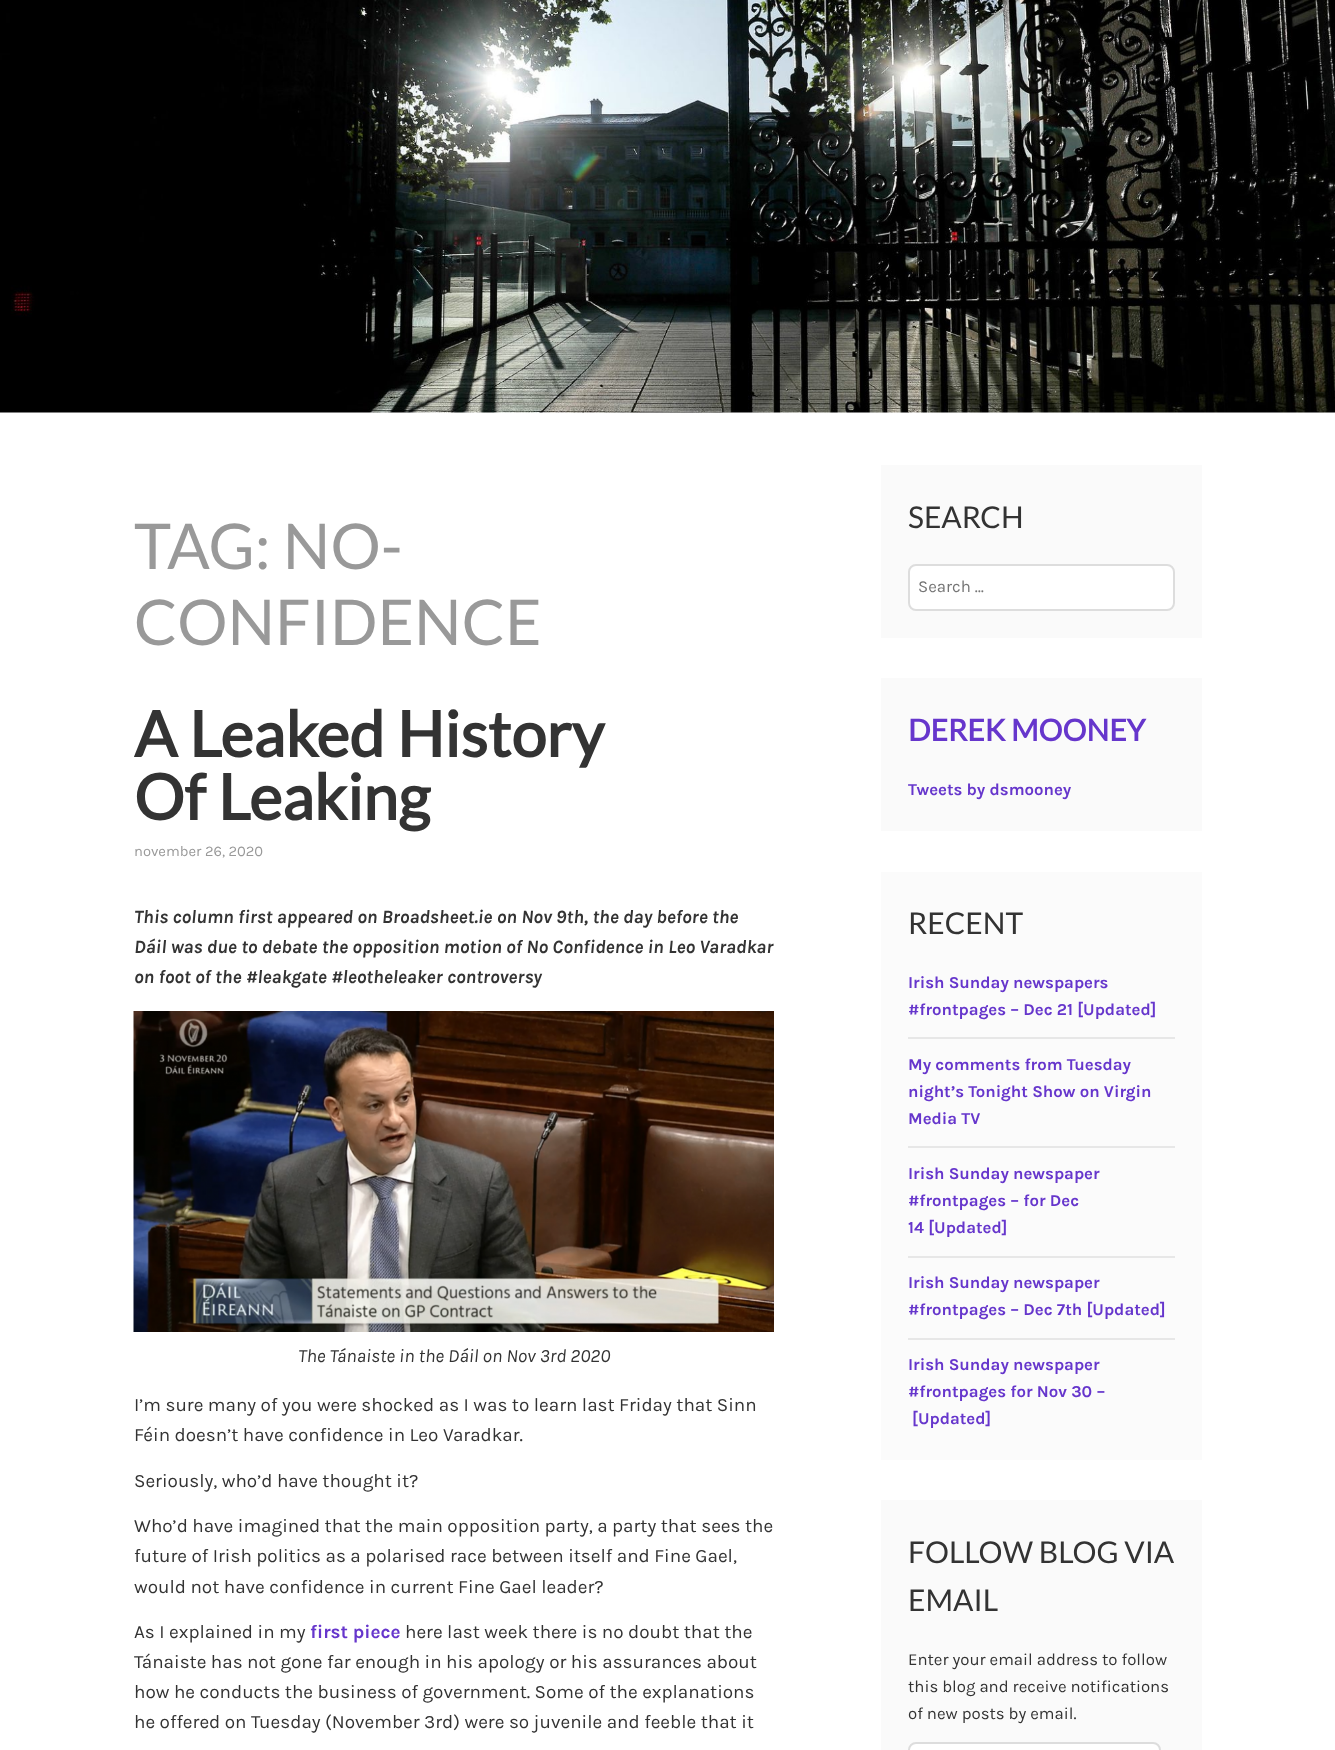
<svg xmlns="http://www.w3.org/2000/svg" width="1335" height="1750">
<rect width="100%" height="100%" fill="#fff"/>
<image x="0" y="0" width="1335" height="413" href="media/1.png"/>
<text x="134" y="569" style="font-family:Lato;font-size:63px;fill:#999">TAG: NO-</text>
<text x="134" y="645" style="font-family:Lato;font-size:63px;fill:#999">CONFIDENCE</text>
<text x="134" y="757" style="font-family:Lato;font-size:63px;font-weight:bold;fill:#333">A Leaked History</text>
<text x="134" y="820" style="font-family:Lato;font-size:63px;font-weight:bold;fill:#333">Of Leaking</text>
<text x="134" y="856" style="font-family:Karla;font-size:14.75px;fill:#999">november 26, 2020</text>
<text x="134" y="923" style="font-family:Karla;font-size:18.9px;font-weight:bold;font-style:italic;fill:#333">This column first appeared on Broadsheet.ie on Nov 9th, the day before the</text>
<text x="134" y="953" style="font-family:Karla;font-size:18.9px;font-weight:bold;font-style:italic;fill:#333">Dáil was due to debate the opposition motion of No Confidence in Leo Varadkar</text>
<text x="134" y="983" style="font-family:Karla;font-size:18.9px;font-weight:bold;font-style:italic;fill:#333">on foot of the #leakgate #leotheleaker controversy</text>
<image x="133" y="1011" width="641" height="321" href="media/2.png"/>
<text x="298" y="1362" style="font-family:Karla;font-size:18.9px;font-style:italic;fill:#333">The Tánaiste in the Dáil on Nov 3rd 2020</text>
<text x="134" y="1411" style="font-family:Karla;font-size:18.9px;fill:#333">I’m sure many of you were shocked as I was to learn last Friday that Sinn</text>
<text x="134" y="1441" style="font-family:Karla;font-size:18.9px;fill:#333">Féin doesn’t have confidence in Leo Varadkar.</text>
<text x="134" y="1487" style="font-family:Karla;font-size:18.9px;fill:#333">Seriously, who’d have thought it?</text>
<text x="134" y="1532" style="font-family:Karla;font-size:18.9px;fill:#333">Who’d have imagined that the main opposition party, a party that sees the</text>
<text x="134" y="1562" style="font-family:Karla;font-size:18.9px;fill:#333">future of Irish politics as a polarised race between itself and Fine Gael,</text>
<text x="134" y="1593" style="font-family:Karla;font-size:18.9px;fill:#333">would not have confidence in current Fine Gael leader?</text>
<text x="134" y="1638" style="font-family:Karla;font-size:18.9px;fill:#333">As I explained in my</text>
<text x="310" y="1638" style="font-family:Karla;font-size:18.9px;font-weight:bold;fill:#6636cc">first piece</text>
<text x="405" y="1638" style="font-family:Karla;font-size:18.9px;fill:#333">here last week there is no doubt that the</text>
<text x="134" y="1668" style="font-family:Karla;font-size:18.9px;fill:#333">Tánaiste has not gone far enough in his apology or his assurances about</text>
<text x="134" y="1698" style="font-family:Karla;font-size:18.9px;fill:#333">how he conducts the business of government. Some of the explanations</text>
<text x="134" y="1728" style="font-family:Karla;font-size:18.9px;fill:#333">he offered on Tuesday (November 3rd) were so juvenile and feeble that it</text>
<rect x="881" y="465" width="321" height="173" fill="#fafafa"/>
<text x="908" y="528" style="font-family:Lato;font-size:30px;fill:#333">SEARCH</text>
<rect x="909" y="565" width="265" height="45" rx="7" fill="#fff" stroke="#ddd" stroke-width="2"/>
<text x="918" y="592" style="font-family:Karla;font-size:16.75px;fill:#757575">Search …</text>
<rect x="881" y="678" width="321" height="153" fill="#fafafa"/>
<text x="908" y="741" style="font-family:Lato;font-size:30px;font-weight:bold;fill:#6636cc">DEREK MOONEY</text>
<text x="908" y="795" style="font-family:Karla;font-size:16.75px;font-weight:bold;fill:#6636cc">Tweets by dsmooney</text>
<rect x="881" y="872" width="321" height="588" fill="#fbfbfb"/>
<text x="908" y="934" style="font-family:Lato;font-size:30px;fill:#333">RECENT</text>
<text x="908" y="988" style="font-family:Karla;font-size:16.75px;font-weight:bold;fill:#6636cc">Irish Sunday newspapers</text>
<text x="908" y="1015" style="font-family:Karla;font-size:16.75px;font-weight:bold;fill:#6636cc">#frontpages – Dec 21 [Updated]</text>
<rect x="908" y="1037" width="267" height="2" fill="#e7e7e7"/>
<text x="908" y="1070" style="font-family:Karla;font-size:16.75px;font-weight:bold;fill:#6636cc">My comments from Tuesday</text>
<text x="908" y="1097" style="font-family:Karla;font-size:16.75px;font-weight:bold;fill:#6636cc">night’s Tonight Show on Virgin</text>
<text x="908" y="1124" style="font-family:Karla;font-size:16.75px;font-weight:bold;fill:#6636cc">Media TV</text>
<rect x="908" y="1146" width="267" height="2" fill="#e7e7e7"/>
<text x="908" y="1179" style="font-family:Karla;font-size:16.75px;font-weight:bold;fill:#6636cc">Irish Sunday newspaper</text>
<text x="908" y="1206" style="font-family:Karla;font-size:16.75px;font-weight:bold;fill:#6636cc">#frontpages – for Dec</text>
<text x="908" y="1233" style="font-family:Karla;font-size:16.75px;font-weight:bold;fill:#6636cc">14 [Updated]</text>
<rect x="908" y="1256" width="267" height="2" fill="#e7e7e7"/>
<text x="908" y="1288" style="font-family:Karla;font-size:16.75px;font-weight:bold;fill:#6636cc">Irish Sunday newspaper</text>
<text x="908" y="1315" style="font-family:Karla;font-size:16.75px;font-weight:bold;fill:#6636cc">#frontpages – Dec 7th [Updated]</text>
<rect x="908" y="1338" width="267" height="2" fill="#e7e7e7"/>
<text x="908" y="1370" style="font-family:Karla;font-size:16.75px;font-weight:bold;fill:#6636cc">Irish Sunday newspaper</text>
<text x="908" y="1397" style="font-family:Karla;font-size:16.75px;font-weight:bold;fill:#6636cc">#frontpages for Nov 30 –</text>
<text x="912" y="1424" style="font-family:Karla;font-size:16.75px;font-weight:bold;fill:#6636cc">[Updated]</text>
<rect x="881" y="1500" width="321" height="250" fill="#fafafa"/>
<text x="908" y="1563" style="font-family:Lato;font-size:30px;fill:#333">FOLLOW BLOG VIA</text>
<text x="908" y="1611" style="font-family:Lato;font-size:30px;fill:#333">EMAIL</text>
<text x="908" y="1665" style="font-family:Karla;font-size:16.75px;fill:#333">Enter your email address to follow</text>
<text x="908" y="1692" style="font-family:Karla;font-size:16.75px;fill:#333">this blog and receive notifications</text>
<text x="908" y="1719" style="font-family:Karla;font-size:16.75px;fill:#333">of new posts by email.</text>
<rect x="909" y="1743" width="251" height="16" rx="7" fill="#fff" stroke="#ddd" stroke-width="2"/>
</svg>
